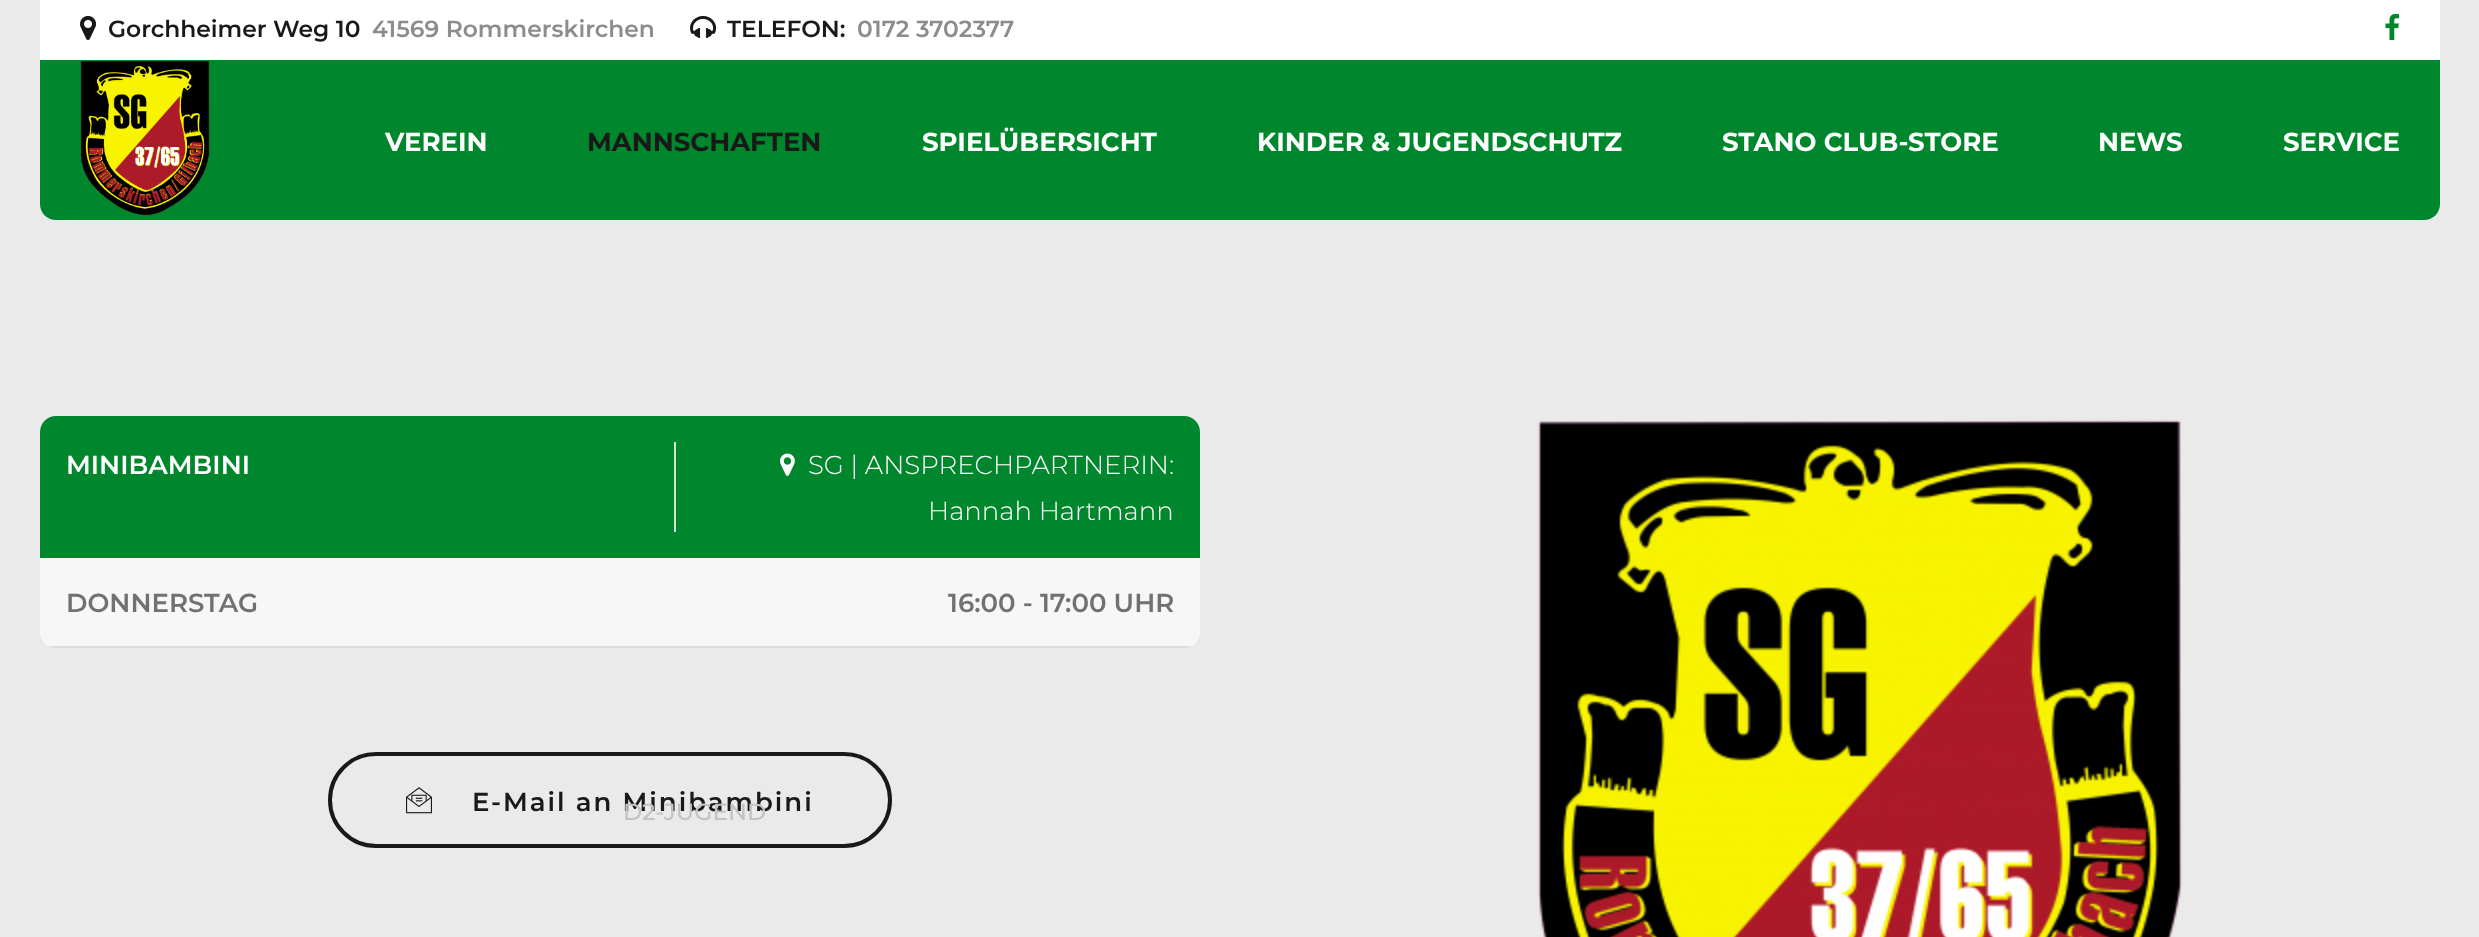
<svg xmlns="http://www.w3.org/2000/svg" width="2479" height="937">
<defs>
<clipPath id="clip1"><rect x="40" y="416" width="1160" height="232" rx="16"/></clipPath>
</defs>
<rect width="100%" height="100%" fill="#eaeaea"/>
<path d="M40 0h2400v204c0 9-7 16-16 16h-2368c-9 0-16-7-16-16z" fill="#00872d"/>
<rect x="40" width="2400" height="60" fill="#fff"/>
<image x="80" y="15" width="16" height="25" href="media/1.png"/>
<text x="108" y="37" style="font-family:Montserrat;font-size:23.4px;font-weight:600;fill:#191919">Gorchheimer Weg 10</text>
<text x="372" y="37" style="font-family:Montserrat;font-size:23.4px;font-weight:600;fill:#8c8c8c">41569 Rommerskirchen</text>
<image x="690" y="15" width="27" height="23" href="media/2.png"/>
<text x="727" y="37" style="font-family:Montserrat;font-size:23.4px;font-weight:600;fill:#191919">TELEFON:</text>
<text x="857" y="37" style="font-family:Montserrat;font-size:23.4px;font-weight:600;fill:#8c8c8c">0172 3702377</text>
<image x="2385" y="13" width="15" height="27" href="media/3.png"/>
<image x="80" y="60" width="130" height="156" href="media/4.png"/>
<text x="385" y="151" style="font-family:Montserrat;font-size:26px;font-weight:bold;fill:#fff">VEREIN</text>
<text x="587" y="151" style="font-family:Montserrat;font-size:26px;font-weight:bold;fill:#191919">MANNSCHAFTEN</text>
<rect x="330" y="754" width="560" height="92" rx="46" fill="none" stroke="#191919" stroke-width="4"/>
<text x="472" y="811" style="font-family:Montserrat;font-size:26px;font-weight:600;letter-spacing:2px;fill:#191919">E-Mail an Minibambini</text>
<text x="623" y="820" style="font-family:Montserrat;font-size:23.4px;font-weight:500;fill:#c3c3c3">D2-JUGEND</text>
<text x="922" y="151" style="font-family:Montserrat;font-size:26px;font-weight:bold;fill:#fff">SPIELÜBERSICHT</text>
<text x="1257" y="151" style="font-family:Montserrat;font-size:26px;font-weight:bold;fill:#fff">KINDER &amp; JUGENDSCHUTZ</text>
<text x="1722" y="151" style="font-family:Montserrat;font-size:26px;font-weight:bold;fill:#fff">STANO CLUB-STORE</text>
<text x="2098" y="151" style="font-family:Montserrat;font-size:26px;font-weight:bold;fill:#fff">NEWS</text>
<text x="2283" y="151" style="font-family:Montserrat;font-size:26px;font-weight:bold;fill:#fff">SERVICE</text>
<path d="M56 416h1128c9 0 16 7 16 16v126h-1160v-126c0-9 7-16 16-16z" fill="#00872d"/>
<rect x="674" y="442" width="2" height="90" fill="#cce7d5"/>
<text x="66" y="474" style="font-family:Montserrat;font-size:26px;font-weight:600;fill:#fff">MINIBAMBINI</text>
<image x="780" y="453" width="15" height="23" href="media/5.png"/>
<text x="808" y="474" style="font-family:Montserrat;font-size:26px;font-weight:300;fill:#fff">SG | ANSPRECHPARTNERIN:</text>
<text x="928" y="520" style="font-family:Montserrat;font-size:26px;font-weight:300;fill:#fff">Hannah Hartmann</text>
<path d="M40 558h1160v74c0 9-7 16-16 16h-1128c-9 0-16-7-16-16z" fill="#f7f7f7"/>
<g clip-path="url(#clip1)">
<rect x="49" y="646" width="1142" height="2" fill="#0000001a"/>
</g>
<text x="66" y="612" style="font-family:Montserrat;font-size:26px;font-weight:600;fill:#717171">DONNERSTAG</text>
<text x="948" y="612" style="font-family:Montserrat;font-size:26px;font-weight:600;fill:#717171">16:00 - 17:00 UHR</text>
<image x="406" y="787" width="26" height="27" href="media/6.png"/>
<image x="1537" y="419" width="646" height="518" href="media/7.png"/>
</svg>
